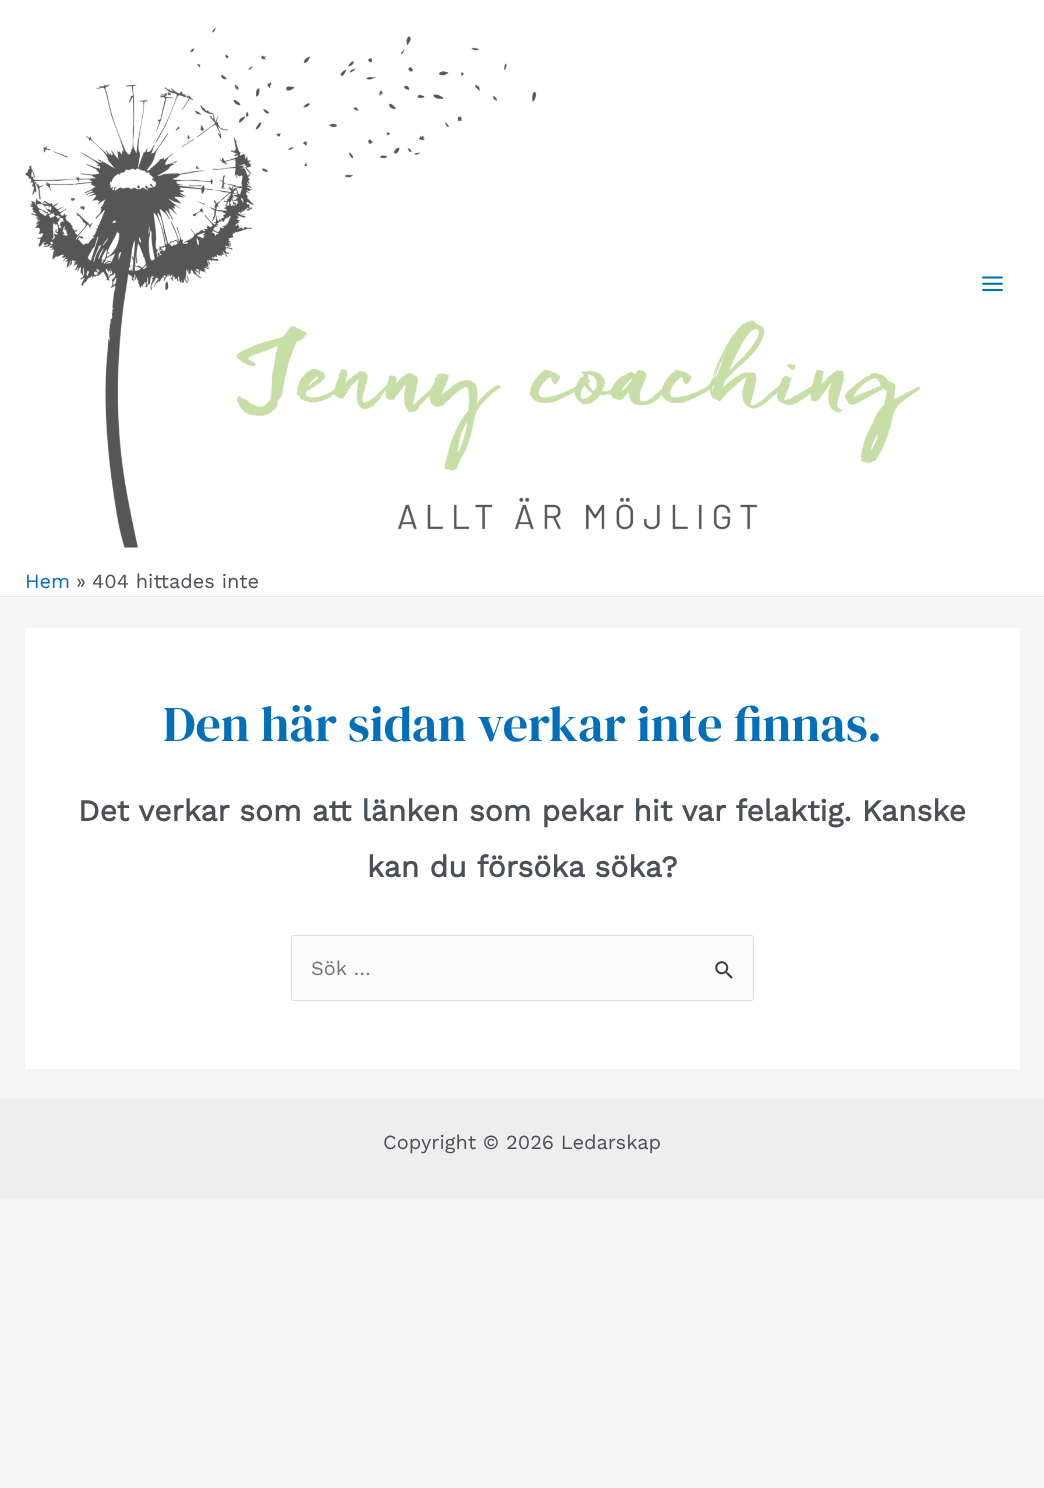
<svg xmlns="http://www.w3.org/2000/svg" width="1044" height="1488">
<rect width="100%" height="100%" fill="#f5f5f5"/>
<rect width="1044" height="598" fill="#fff"/>
<rect y="596" width="1044" height="1" fill="#eaeaea"/>
<image x="25" y="27" width="895" height="521" href="media/1.png"/>
<image x="982" y="276" width="21" height="16" href="media/2.png"/>
<text x="25" y="588" style="font-family:Work Sans;font-size:20px;fill:#0170b9">Hem</text>
<text x="76" y="588" style="font-family:Work Sans;font-size:20px;fill:#4b4f58">»</text>
<text x="92" y="588" style="font-family:Work Sans;font-size:20px;fill:#4b4f58">404 hittades inte</text>
<rect x="25" y="628" width="995" height="441" fill="#fff"/>
<text x="163" y="741" style="font-family:DM Serif Display;font-size:50px;fill:#0170b9">Den här sidan verkar inte finnas.</text>
<text x="78" y="821" style="font-family:Work Sans;font-size:30px;font-weight:bold;fill:#4b4f58">Det verkar som att länken som pekar hit var felaktig. Kanske</text>
<text x="367" y="877" style="font-family:Work Sans;font-size:30px;font-weight:bold;fill:#4b4f58">kan du försöka söka?</text>
<rect x="291.5" y="935.5" width="462" height="65" rx="2" fill="#fafafa" stroke="#ddd"/>
<text x="311" y="975" style="font-family:Work Sans;font-size:20px;fill:#757575">Sök …</text>
<image x="715" y="961" width="18" height="18" href="media/3.png"/>
<rect y="1099" width="1044" height="100" fill="#eee"/>
<text x="383" y="1149" style="font-family:Work Sans;font-size:20px;fill:#4b4f58">Copyright © 2026 Ledarskap</text>
</svg>
